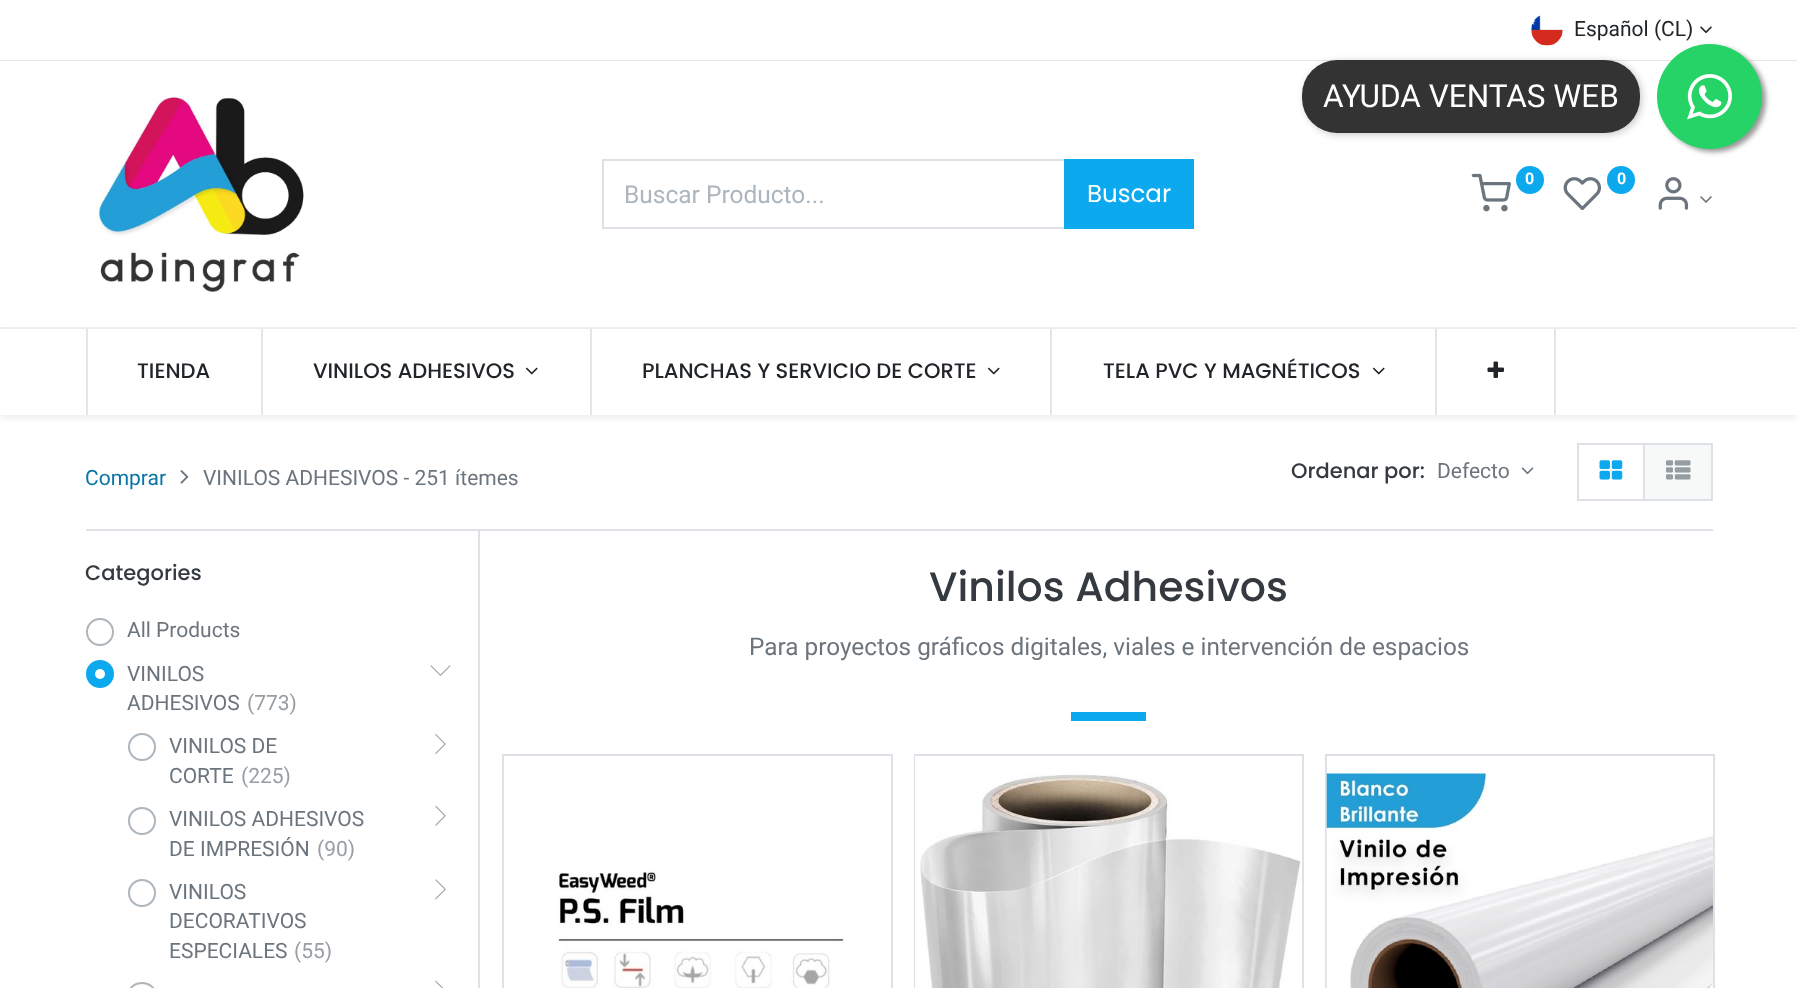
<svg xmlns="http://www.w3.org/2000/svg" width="1797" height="988">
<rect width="100%" height="100%" fill="#fff"/>
<rect y="60" width="1797" height="1" fill="#e4e5e5"/>
<image x="1531" y="15" width="32" height="31" href="media/1.png"/>
<text x="1574" y="36" style="font-family:Roboto;font-size:21px;fill:#212529">Español (CL)</text>
<image x="1700" y="26" width="12" height="8" href="media/2.png"/>
<rect y="327" width="1797" height="2" fill="#edeeef"/>
<image x="97" y="96" width="207" height="196" href="media/3.png"/>
<image x="1471" y="173" width="40" height="39" href="media/4.png"/>
<circle cx="1530" cy="180" r="14" fill="#0da9ef"/>
<text x="1525" y="184" style="font-family:Roboto;font-size:16px;font-weight:bold;fill:#fff">0</text>
<image x="1563" y="177" width="39" height="34" href="media/5.png"/>
<circle cx="1621" cy="180" r="14" fill="#0da9ef"/>
<text x="1617" y="184" style="font-family:Roboto;font-size:16px;font-weight:bold;fill:#fff">0</text>
<image x="1658" y="177" width="31" height="33" href="media/6.png"/>
<image x="1700" y="196" width="12" height="7" href="media/7.png"/>
<rect x="603" y="160" width="462" height="68" fill="none" stroke="#dee2e6" stroke-width="2"/>
<text x="624" y="203" style="font-family:Roboto;font-size:24.5px;fill:#adb5bd">Buscar Producto...</text>
<rect x="1064" y="159" width="130" height="70" fill="#0da9ef"/>
<text x="1087" y="202" style="font-family:Poppins;font-size:24.5px;fill:#fff">Buscar</text>
<rect y="333" width="1797" height="85" fill="#00000012" filter="blur(3.5px)"/>
<rect y="329" width="1797" height="86" fill="#fff"/>
<rect x="86" y="329" width="2" height="86" fill="#e4e5e5"/>
<text x="137" y="378" style="font-family:Poppins;font-size:21px;font-weight:500;fill:#212529">TIENDA</text>
<rect x="261" y="329" width="2" height="86" fill="#e4e5e5"/>
<text x="313" y="378" style="font-family:Poppins;font-size:21px;font-weight:500;fill:#212529">VINILOS ADHESIVOS</text>
<image x="525" y="367" width="13" height="8" href="media/8.png"/>
<rect x="590" y="329" width="2" height="86" fill="#e4e5e5"/>
<text x="642" y="378" style="font-family:Poppins;font-size:21px;font-weight:500;fill:#212529">PLANCHAS Y SERVICIO DE CORTE</text>
<image x="987" y="367" width="13" height="8" href="media/8.png"/>
<rect x="1050" y="329" width="2" height="86" fill="#e4e5e5"/>
<text x="1103" y="378" style="font-family:Poppins;font-size:21px;font-weight:500;fill:#212529">TELA PVC Y MAGNÉTICOS</text>
<image x="1372" y="367" width="13" height="8" href="media/8.png"/>
<rect x="1554" y="329" width="2" height="86" fill="#e4e5e5"/>
<rect x="1435" y="329" width="2" height="86" fill="#e4e5e5"/>
<image x="1487" y="361" width="17" height="17" href="media/9.png"/>
<text x="85" y="485" style="font-family:Roboto;font-size:21px;fill:#0976a6">Comprar</text>
<image x="180" y="470" width="9" height="14" href="media/10.png"/>
<text x="203" y="485" style="font-family:Roboto;font-size:21px;fill:#6c757d">VINILOS ADHESIVOS - 251 ítemes</text>
<text x="1291" y="478" style="font-family:Poppins;font-size:21px;font-weight:500;fill:#343a40">Ordenar por:</text>
<text x="1437" y="478" style="font-family:Roboto;font-size:21px;fill:#6c757d">Defecto</text>
<image x="1521" y="467" width="13" height="8" href="media/11.png"/>
<rect x="1644" y="444" width="68" height="56" fill="#f7f8f8" stroke="#dee2e6" stroke-width="2"/>
<rect x="1578" y="444" width="66" height="56" fill="none" stroke="#dee2e6" stroke-width="2"/>
<image x="1599" y="460" width="24" height="20" href="media/12.png"/>
<image x="1666" y="460" width="25" height="20" href="media/13.png"/>
<rect x="86" y="529" width="1627" height="2" fill="#dee2e6"/>
<rect x="478" y="530" width="2" height="458" fill="#dee2e6"/>
<text x="85" y="580" style="font-family:Poppins;font-size:21px;font-weight:500;fill:#343a40">Categories</text>
<circle cx="100" cy="632" r="13" fill="none" stroke="#adb5bd" stroke-width="2"/>
<text x="127" y="637" style="font-family:Roboto;font-size:21px;fill:#6c757d">All Products</text>
<circle cx="100" cy="674" r="13" fill="#0da9ef" stroke="#0da9ef" stroke-width="2"/>
<text x="127" y="681" style="font-family:Roboto;font-size:21px;fill:#6c757d">VINILOS</text>
<circle cx="100" cy="674" r="5" fill="#fff"/>
<text x="127" y="710" style="font-family:Roboto;font-size:21px;fill:#6c757d">ADHESIVOS</text>
<text x="247" y="710" style="font-family:Roboto;font-size:21px;fill:#989ea4">(773)</text>
<image x="430" y="665" width="21" height="11" href="media/14.png"/>
<circle cx="142" cy="747" r="13" fill="none" stroke="#adb5bd" stroke-width="2"/>
<text x="169" y="753" style="font-family:Roboto;font-size:21px;fill:#6c757d">VINILOS DE</text>
<text x="169" y="783" style="font-family:Roboto;font-size:21px;fill:#6c757d">CORTE</text>
<text x="241" y="783" style="font-family:Roboto;font-size:21px;fill:#989ea4">(225)</text>
<image x="435" y="734" width="11" height="20" href="media/15.png"/>
<circle cx="142" cy="821" r="13" fill="none" stroke="#adb5bd" stroke-width="2"/>
<text x="169" y="826" style="font-family:Roboto;font-size:21px;fill:#6c757d">VINILOS ADHESIVOS</text>
<text x="169" y="856" style="font-family:Roboto;font-size:21px;fill:#6c757d">DE IMPRESIÓN</text>
<text x="317" y="856" style="font-family:Roboto;font-size:21px;fill:#989ea4">(90)</text>
<image x="435" y="805" width="11" height="21" href="media/16.png"/>
<circle cx="142" cy="893" r="13" fill="none" stroke="#adb5bd" stroke-width="2"/>
<text x="169" y="899" style="font-family:Roboto;font-size:21px;fill:#6c757d">VINILOS</text>
<text x="169" y="928" style="font-family:Roboto;font-size:21px;fill:#6c757d">DECORATIVOS</text>
<text x="169" y="958" style="font-family:Roboto;font-size:21px;fill:#6c757d">ESPECIALES</text>
<text x="294" y="958" style="font-family:Roboto;font-size:21px;fill:#989ea4">(55)</text>
<image x="435" y="879" width="11" height="21" href="media/17.png"/>
<rect x="129" y="983" width="26" height="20" rx="13" fill="none" stroke="#adb5bd" stroke-width="2"/>
<image x="435" y="980" width="8" height="8" href="media/18.png"/>
<text x="929" y="601" style="font-family:Poppins;font-size:41px;font-weight:500;fill:#343a40">Vinilos Adhesivos</text>
<text x="749" y="655" style="font-family:Roboto;font-size:24.35px;fill:#6c757d">Para proyectos gráficos digitales, viales e intervención de espacios</text>
<rect x="1071" y="712" width="75" height="9" fill="#0da9ef"/>
<rect x="503" y="755" width="389" height="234" fill="none" stroke="#dee2e6" stroke-width="2"/>
<image x="558" y="871" width="286" height="117" href="media/19.png"/>
<rect x="915" y="755" width="388" height="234" fill="none" stroke="#dee2e6" stroke-width="2"/>
<rect x="915" y="756" width="1" height="232" fill="#ffffffe6"/>
<image x="920" y="774" width="381" height="214" href="media/20.png"/>
<rect x="1326" y="755" width="388" height="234" fill="none" stroke="#dee2e6" stroke-width="2"/>
<image x="1326" y="773" width="388" height="215" href="media/21.png"/>
<rect x="1304" y="61" width="338" height="74" rx="35" fill="#00000033" filter="blur(3.5px)"/>
<rect x="1302" y="60" width="338" height="73" rx="35" fill="#333"/>
<text x="1323" y="107" style="font-family:Roboto;font-size:31.5px;fill:#fff">AYUDA VENTAS WEB</text>
<rect x="1661" y="47" width="105" height="105" rx="52.5" fill="#999" filter="blur(2.5px)"/>
<circle cx="1709.5" cy="96.5" r="52.5" fill="#25d366"/>
<image x="1687" y="74" width="45" height="46" href="media/22.png"/>
</svg>
